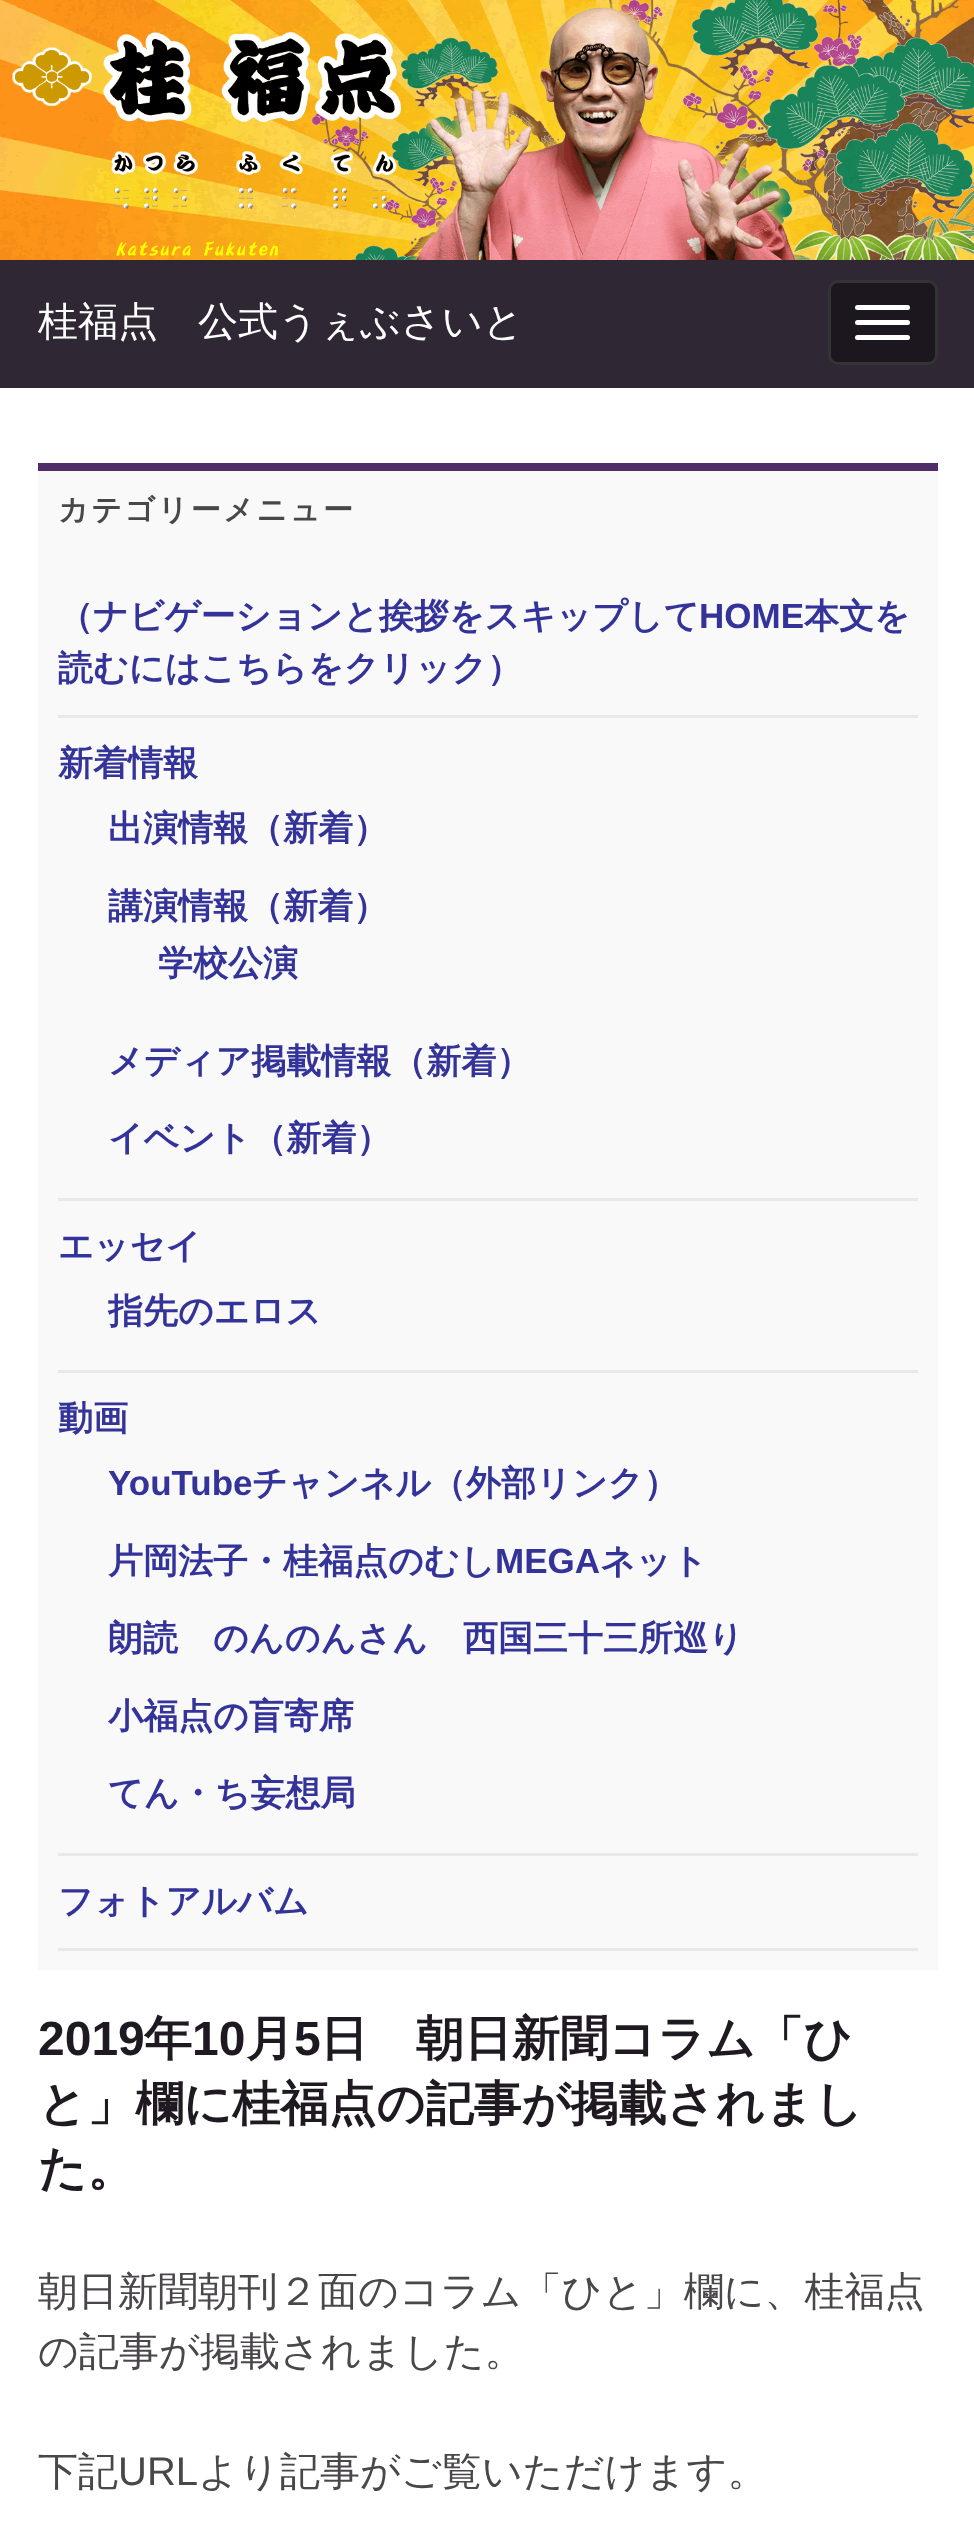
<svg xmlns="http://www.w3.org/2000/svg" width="974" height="2537">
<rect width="100%" height="100%" fill="#fff"/>
<image x="0" y="0" width="974" height="260" href="media/1.png"/>
<rect y="260" width="974" height="128" fill="#2f2733"/>
<text x="38" y="335" style="font-family:WenQuanYi Zen Hei;font-size:40px;font-weight:500;fill:#fff">桂福点　公式うぇぶさいと</text>
<rect x="829.5" y="281.5" width="107" height="82" rx="8.5" fill="#1c171f" stroke="#333" stroke-width="3"/>
<rect x="855" y="305" width="55" height="5" rx="2.5" fill="#fff"/>
<rect x="855" y="320" width="55" height="5" rx="2.5" fill="#fff"/>
<rect x="855" y="335" width="55" height="5" rx="2.5" fill="#fff"/>
<rect x="38" y="471" width="900" height="1499" fill="#f9f9f9"/>
<rect x="38" y="463" width="900" height="8" fill="#4f2d69"/>
<text x="58" y="520" style="font-family:WenQuanYi Zen Hei;font-size:30px;font-weight:bold;letter-spacing:2.5px;fill:#4a474b">カテゴリーメニュー</text>
<rect x="58" y="715" width="860" height="3" fill="#e9e9e9"/>
<text x="58" y="628" style="font-family:WenQuanYi Zen Hei;font-size:35px;font-weight:bold;fill:#339">（ナビゲーションと挨拶をスキップして</text>
<text x="699" y="628" style="font-family:Liberation Sans;font-size:35px;font-weight:bold;fill:#339">HOME</text>
<text x="804" y="628" style="font-family:WenQuanYi Zen Hei;font-size:35px;font-weight:bold;fill:#339">本文を</text>
<text x="58" y="680" style="font-family:WenQuanYi Zen Hei;font-size:35px;font-weight:bold;fill:#339">読むにはこちらをクリック）</text>
<rect x="58" y="1198" width="860" height="3" fill="#e9e9e9"/>
<text x="58" y="775" style="font-family:WenQuanYi Zen Hei;font-size:35px;font-weight:bold;fill:#339">新着情報</text>
<text x="108" y="840" style="font-family:WenQuanYi Zen Hei;font-size:35px;font-weight:bold;fill:#339">出演情報（新着）</text>
<text x="108" y="918" style="font-family:WenQuanYi Zen Hei;font-size:35px;font-weight:bold;fill:#339">講演情報（新着）</text>
<text x="158" y="975" style="font-family:WenQuanYi Zen Hei;font-size:35px;font-weight:bold;fill:#339">学校公演</text>
<text x="108" y="1073" style="font-family:WenQuanYi Zen Hei;font-size:35px;font-weight:bold;fill:#339">メディア掲載情報（新着）</text>
<text x="108" y="1150" style="font-family:WenQuanYi Zen Hei;font-size:35px;font-weight:bold;fill:#339">イベント（新着）</text>
<rect x="58" y="1370" width="860" height="3" fill="#e9e9e9"/>
<text x="58" y="1258" style="font-family:WenQuanYi Zen Hei;font-size:35px;font-weight:bold;fill:#339">エッセイ</text>
<text x="108" y="1323" style="font-family:WenQuanYi Zen Hei;font-size:35px;font-weight:bold;fill:#339">指先のエロス</text>
<rect x="58" y="1853" width="860" height="3" fill="#e9e9e9"/>
<text x="58" y="1430" style="font-family:WenQuanYi Zen Hei;font-size:35px;font-weight:bold;fill:#339">動画</text>
<text x="108" y="1495" style="font-family:Liberation Sans;font-size:35px;font-weight:bold;fill:#339">YouTube</text>
<text x="252" y="1495" style="font-family:WenQuanYi Zen Hei;font-size:35px;font-weight:bold;fill:#339">チャンネル（外部リンク）</text>
<text x="108" y="1573" style="font-family:WenQuanYi Zen Hei;font-size:35px;font-weight:bold;fill:#339">片岡法子・桂福点のむし</text>
<text x="495" y="1573" style="font-family:Liberation Sans;font-size:35px;font-weight:bold;fill:#339">MEGA</text>
<text x="600" y="1573" style="font-family:WenQuanYi Zen Hei;font-size:35px;font-weight:bold;fill:#339">ネット</text>
<text x="108" y="1650" style="font-family:WenQuanYi Zen Hei;font-size:35px;font-weight:bold;fill:#339">朗読　のんのんさん　西国三十三所巡り</text>
<text x="108" y="1728" style="font-family:WenQuanYi Zen Hei;font-size:35px;font-weight:bold;fill:#339">小福点の盲寄席</text>
<text x="108" y="1805" style="font-family:WenQuanYi Zen Hei;font-size:35px;font-weight:bold;fill:#339">てん・ち妄想局</text>
<rect x="58" y="1948" width="860" height="3" fill="#e9e9e9"/>
<text x="58" y="1913" style="font-family:WenQuanYi Zen Hei;font-size:35px;font-weight:bold;fill:#339">フォトアルバム</text>
<text x="38" y="2055" style="font-family:Liberation Sans;font-size:48px;font-weight:bold;fill:#1f1a22">2019</text>
<text x="144" y="2055" style="font-family:WenQuanYi Zen Hei;font-size:48px;font-weight:bold;fill:#1f1a22">年</text>
<text x="192" y="2055" style="font-family:Liberation Sans;font-size:48px;font-weight:bold;fill:#1f1a22">10</text>
<text x="246" y="2055" style="font-family:WenQuanYi Zen Hei;font-size:48px;font-weight:bold;fill:#1f1a22">月</text>
<text x="294" y="2055" style="font-family:Liberation Sans;font-size:48px;font-weight:bold;fill:#1f1a22">5</text>
<text x="320" y="2055" style="font-family:WenQuanYi Zen Hei;font-size:48px;font-weight:bold;fill:#1f1a22">日　朝日新聞コラム「ひ</text>
<text x="38" y="2120" style="font-family:WenQuanYi Zen Hei;font-size:48px;font-weight:bold;fill:#1f1a22">と」欄に桂福点の記事が掲載されまし</text>
<text x="38" y="2185" style="font-family:WenQuanYi Zen Hei;font-size:48px;font-weight:bold;fill:#1f1a22">た。</text>
<text x="38" y="2305" style="font-family:WenQuanYi Zen Hei;font-size:40px;font-weight:500;fill:#4a474b">朝日新聞朝刊２面のコラム「ひと」欄に、桂福点</text>
<text x="38" y="2365" style="font-family:WenQuanYi Zen Hei;font-size:40px;font-weight:500;fill:#4a474b">の記事が掲載されました。</text>
<text x="38" y="2485" style="font-family:WenQuanYi Zen Hei;font-size:40px;font-weight:500;fill:#4a474b">下記</text>
<text x="118" y="2485" style="font-family:Liberation Sans;font-size:40px;fill:#4a474b">URL</text>
<text x="198" y="2485" style="font-family:WenQuanYi Zen Hei;font-size:40px;font-weight:500;fill:#4a474b">より記事がご覧いただけます。</text>
</svg>
